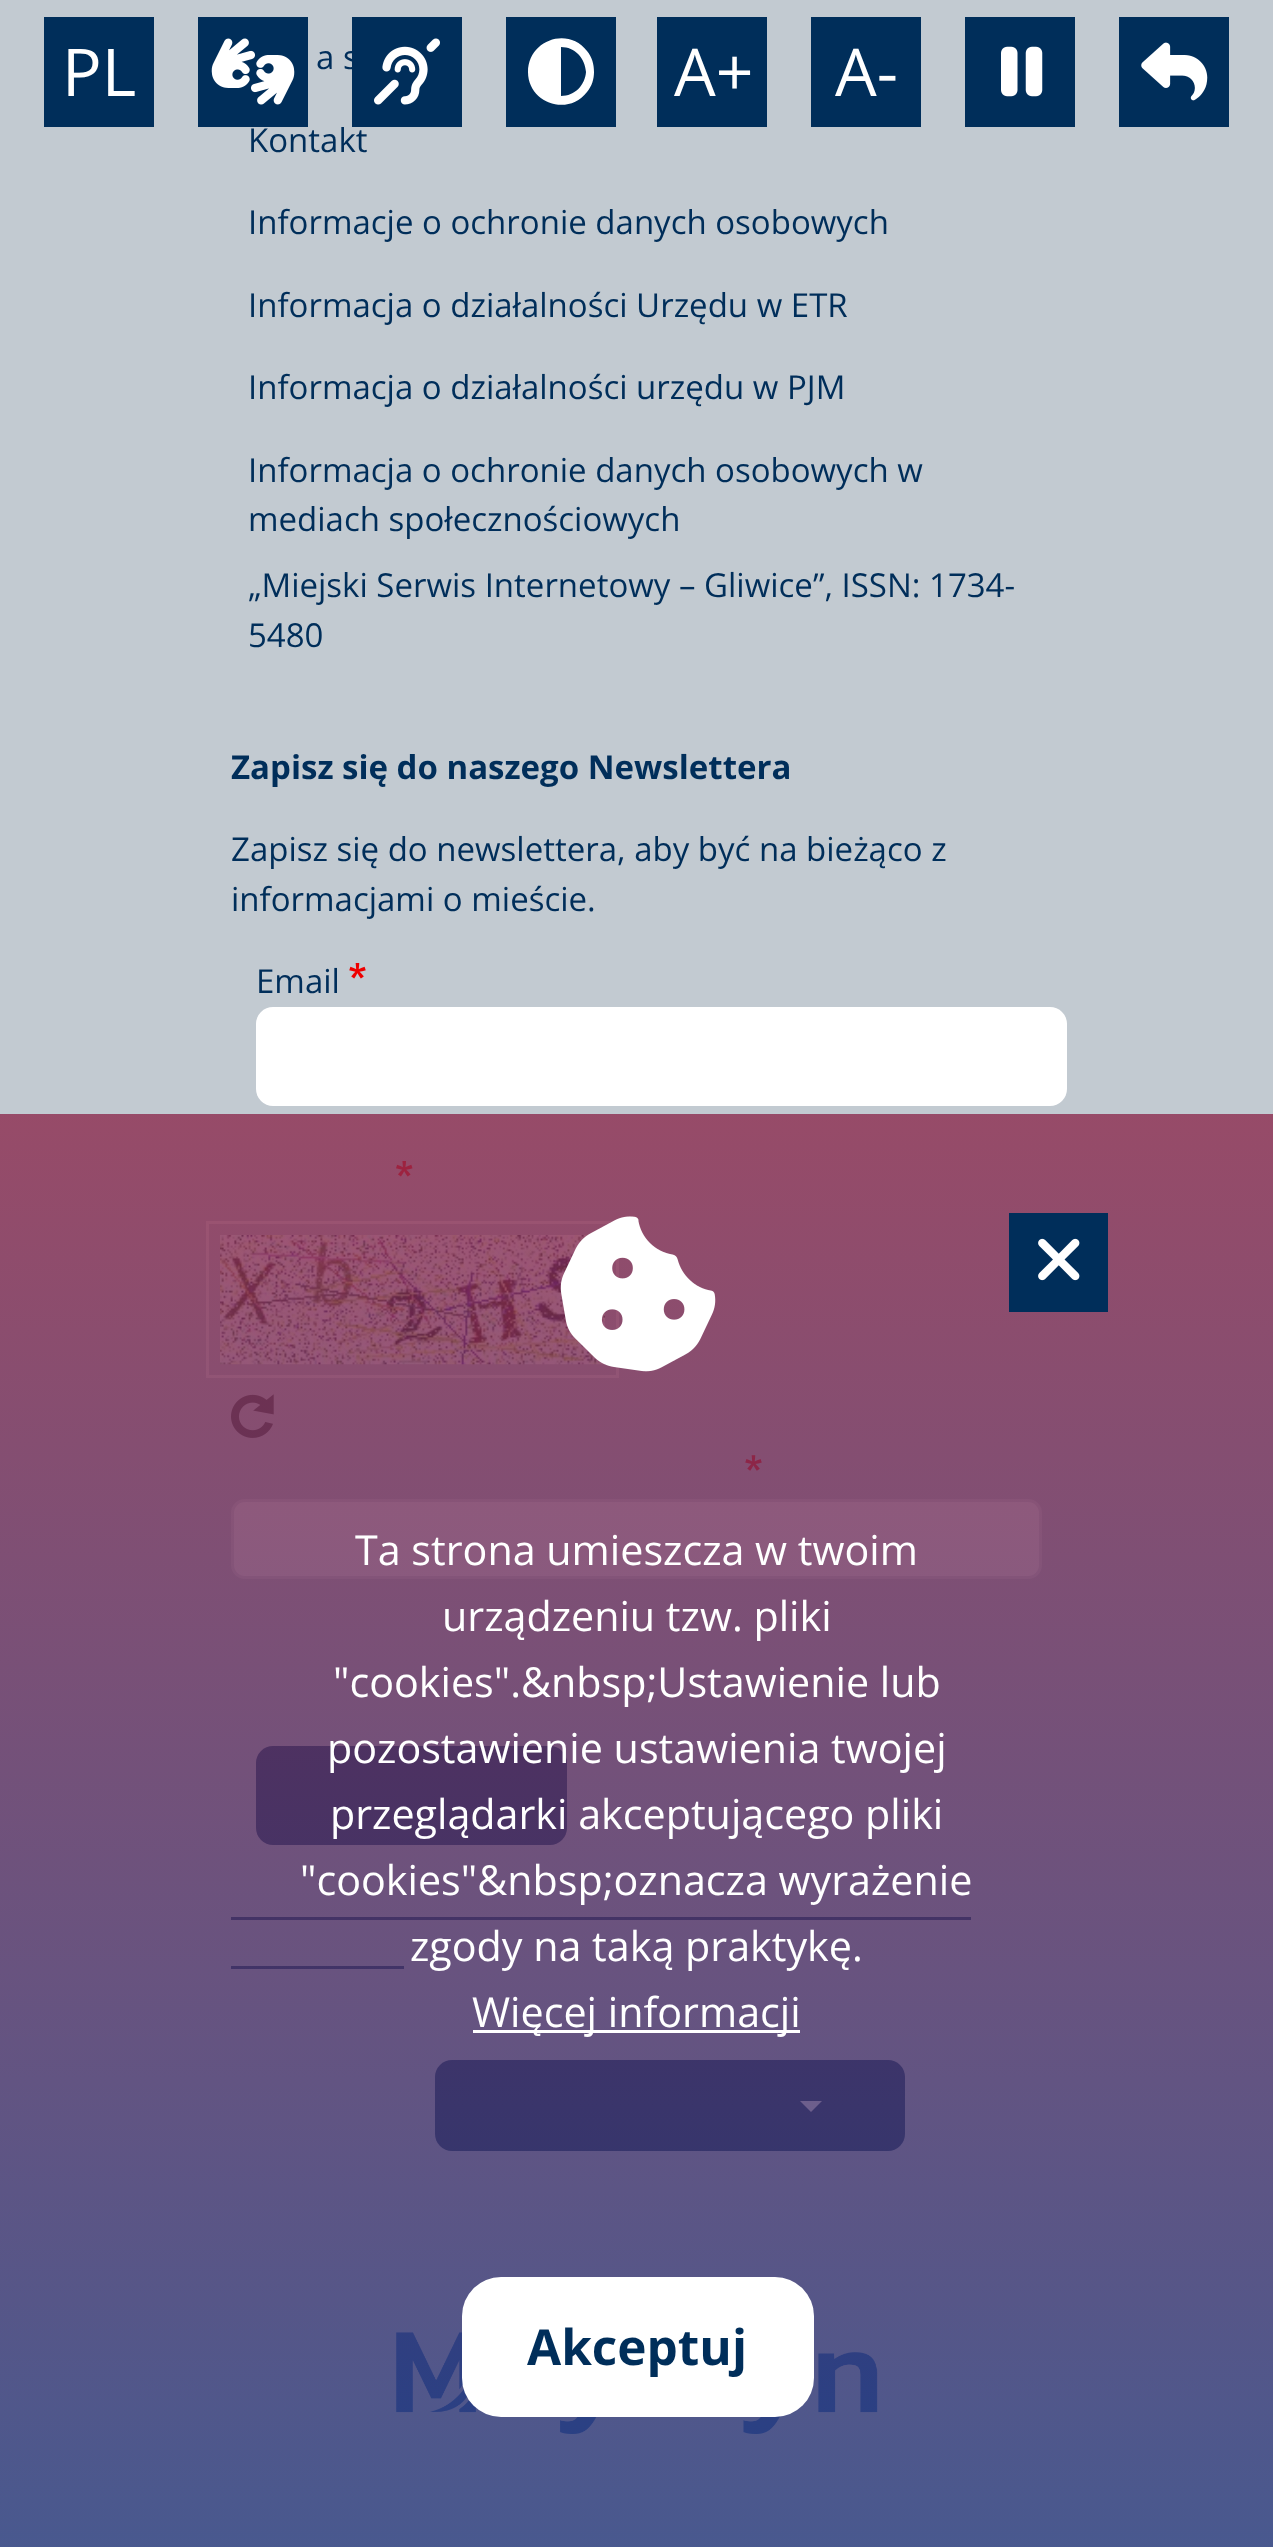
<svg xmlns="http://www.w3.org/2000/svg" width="1273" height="2547">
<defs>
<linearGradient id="g1" gradientUnits="userSpaceOnUse" x1="637" y1="1114" x2="637" y2="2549"><stop offset="0" stop-color="#8c2b4e" stop-opacity="0.8"/><stop offset="1" stop-color="#2a3c7e" stop-opacity="0.8"/></linearGradient>
</defs>
<rect width="100%" height="100%" fill="#c2cad1"/>
<rect x="44" y="17" width="110" height="110" fill="#002e5a"/>
<text x="62" y="96" style="font-family:Open Sans;font-size:66px;fill:#fff">PL</text>
<rect x="198" y="17" width="110" height="110" fill="#002e5a"/>
<image x="211" y="38" width="84" height="67" href="media/1.png"/>
<rect x="352" y="17" width="110" height="110" fill="#002e5a"/>
<image x="374" y="38" width="66" height="67" href="media/2.png"/>
<rect x="506" y="17" width="110" height="110" fill="#002e5a"/>
<path d="M586 72c-1-14-11-25-25-25v49c14 0 24-11 25-24zm-58 0c0-32 40-46 59-21c5 6 7 13 7 21c0 7-2 14-7 20c-19 25-59 11-59-20z" fill="#fff"/>
<rect x="657" y="17" width="110" height="110" fill="#002e5a"/>
<text x="674" y="96" style="font-family:Open Sans;font-size:66px;fill:#fff">A+</text>
<rect x="811" y="17" width="110" height="110" fill="#002e5a"/>
<text x="835" y="96" style="font-family:Open Sans;font-size:66px;fill:#fff">A-</text>
<rect x="965" y="17" width="110" height="110" fill="#002e5a"/>
<image x="1001" y="46" width="42" height="51" href="media/3.png"/>
<rect x="1119" y="17" width="110" height="110" fill="#002e5a"/>
<image x="1141" y="42" width="67" height="59" href="media/4.png"/>
<text x="316" y="69" style="font-family:Open Sans;font-size:33px;fill:#002e5a">a s</text>
<text x="248" y="152" style="font-family:Open Sans;font-size:33px;fill:#002e5a">Kontakt</text>
<text x="248" y="234" style="font-family:Open Sans;font-size:33px;fill:#002e5a">Informacje o ochronie danych osobowych</text>
<text x="248" y="317" style="font-family:Open Sans;font-size:33px;fill:#002e5a">Informacja o działalności Urzędu w ETR</text>
<text x="248" y="399" style="font-family:Open Sans;font-size:33px;fill:#002e5a">Informacja o działalności urzędu w PJM</text>
<text x="248" y="482" style="font-family:Open Sans;font-size:33px;fill:#002e5a">Informacja o ochronie danych osobowych w</text>
<text x="248" y="531" style="font-family:Open Sans;font-size:33px;fill:#002e5a">mediach społecznościowych</text>
<text x="248" y="597" style="font-family:Open Sans;font-size:33px;fill:#002e5a">„Miejski Serwis Internetowy – Gliwice”, ISSN: 1734-</text>
<text x="248" y="647" style="font-family:Open Sans;font-size:33px;fill:#002e5a">5480</text>
<text x="231" y="779" style="font-family:Open Sans;font-size:33px;font-weight:bold;fill:#002e5a">Zapisz się do naszego Newslettera</text>
<text x="231" y="861" style="font-family:Open Sans;font-size:33px;fill:#002e5a">Zapisz się do newslettera, aby być na bieżąco z</text>
<text x="231" y="911" style="font-family:Open Sans;font-size:33px;fill:#002e5a">informacjami o mieście.</text>
<text x="256" y="993" style="font-family:Open Sans;font-size:33px;fill:#002e5a">Email</text>
<image x="349" y="963" width="17" height="16" href="media/5.png"/>
<rect x="256" y="1007" width="811" height="99" rx="17" fill="#fff"/>
<image x="396" y="1161" width="17" height="16" href="media/6.png"/>
<rect x="207.5" y="1222.5" width="410" height="154" fill="none" stroke="#eee" stroke-width="3"/>
<image x="220" y="1235" width="385" height="130" href="media/7.png"/>
<image x="231" y="1394" width="43" height="44" href="media/8.png"/>
<image x="745" y="1455" width="17" height="16" href="media/9.png"/>
<rect x="232.5" y="1500.5" width="808" height="77" rx="12.5" fill="#fff" stroke="#dee2e6" stroke-width="3"/>
<rect x="256" y="1746" width="311" height="99" rx="17" fill="#002e5a"/>
<rect x="231" y="1917" width="740" height="3" fill="#002e5a"/>
<rect x="231" y="1966" width="173" height="3" fill="#002e5a"/>
<rect x="435" y="2060" width="470" height="91" rx="17" fill="#002e5a"/>
<path d="M800 2101h22l-11 11z" fill="#fff"/>
<image x="396" y="2332" width="482" height="102" href="media/10.png"/>
<rect y="1114" width="1273" height="1433" fill="url(#g1)"/>
<image x="560" y="1216" width="156" height="156" href="media/11.png"/>
<text x="355" y="1565" style="font-family:Open Sans;font-size:41.25px;fill:#fff">Ta strona umieszcza w twoim</text>
<text x="442" y="1631" style="font-family:Open Sans;font-size:41.25px;fill:#fff">urządzeniu tzw. pliki</text>
<text x="333" y="1697" style="font-family:Open Sans;font-size:41.25px;fill:#fff">"cookies".&amp;nbsp;Ustawienie lub</text>
<text x="327" y="1763" style="font-family:Open Sans;font-size:41.25px;fill:#fff">pozostawienie ustawienia twojej</text>
<text x="330" y="1829" style="font-family:Open Sans;font-size:41.25px;fill:#fff">przeglądarki akceptującego pliki</text>
<text x="300" y="1895" style="font-family:Open Sans;font-size:41.25px;fill:#fff">"cookies"&amp;nbsp;oznacza wyrażenie</text>
<text x="410" y="1961" style="font-family:Open Sans;font-size:41.25px;fill:#fff">zgody na taką praktykę.</text>
<rect x="473" y="2030" width="327" height="3" fill="#fff"/>
<text x="472" y="2027" style="font-family:Open Sans;font-size:41.25px;fill:#fff">Więcej informacji</text>
<rect x="1009" y="1213" width="99" height="99" fill="#002e5a"/>
<image x="1038" y="1238" width="42" height="43" href="media/12.png"/>
<rect x="462" y="2277" width="352" height="140" rx="39" fill="#fff"/>
<text x="527" y="2365" style="font-family:Open Sans;font-size:49.5px;font-weight:bold;fill:#002e5a">Akceptuj</text>
</svg>
